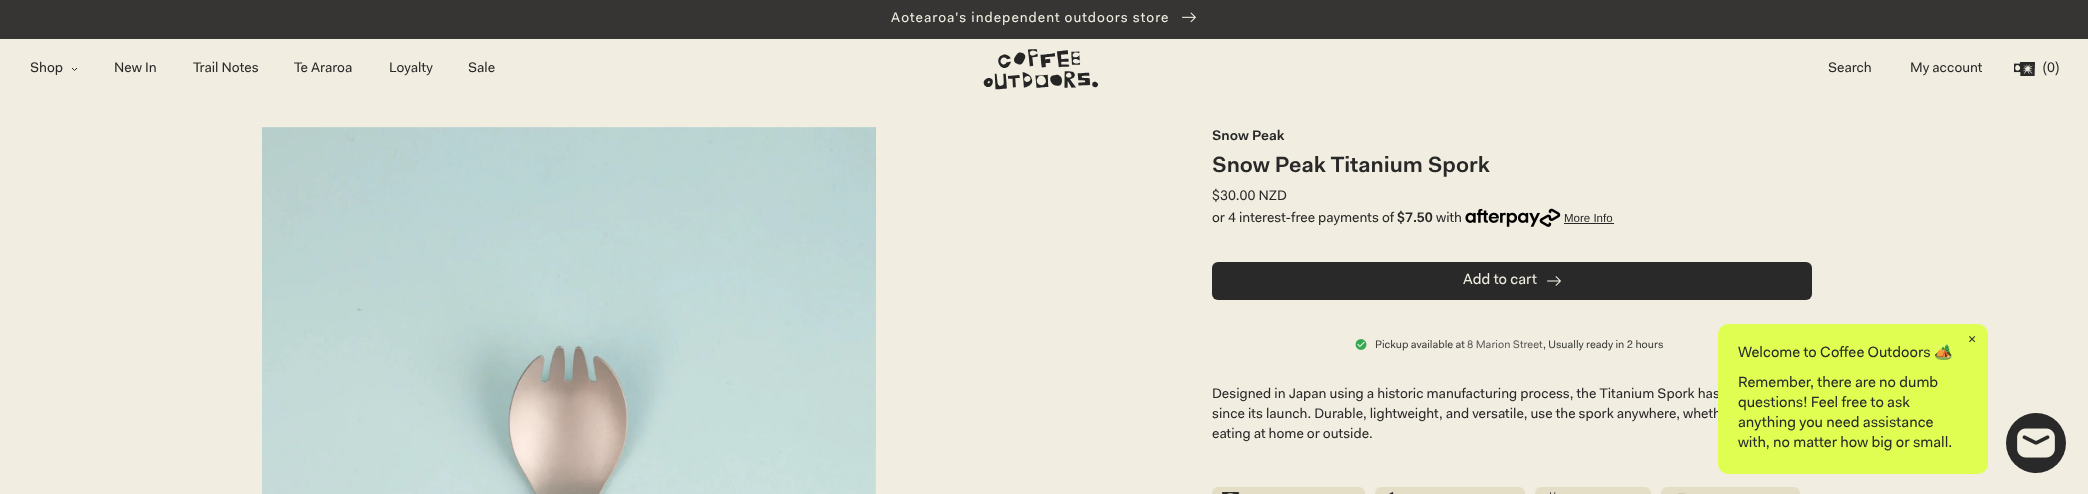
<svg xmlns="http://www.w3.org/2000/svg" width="2088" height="494">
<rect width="100%" height="100%" fill="#f1eee1"/>
<rect y="38" width="2088" height="1" fill="#3a3938"/>
<rect width="2088" height="38" fill="#363534"/>
<text x="891" y="22" style="font-family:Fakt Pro;font-size:14px;letter-spacing:1px;fill:#f1eee1">Aotearoa's independent outdoors store</text>
<image x="1182" y="12" width="14" height="11" href="media/1.png"/>
<text x="30" y="72" style="font-family:Fakt Pro;font-size:14px;fill:#2a2929">Shop</text>
<path d="M72 68l2.5 2.5l2.5-2.5" fill="none" stroke="#2a2929"/>
<text x="114" y="72" style="font-family:Fakt Pro;font-size:14px;fill:#2a2929">New In</text>
<text x="193" y="72" style="font-family:Fakt Pro;font-size:14px;fill:#2a2929">Trail Notes</text>
<text x="294" y="72" style="font-family:Fakt Pro;font-size:14px;fill:#2a2929">Te Araroa</text>
<text x="389" y="72" style="font-family:Fakt Pro;font-size:14px;fill:#2a2929">Loyalty</text>
<text x="468" y="72" style="font-family:Fakt Pro;font-size:14px;fill:#2a2929">Sale</text>
<image x="983" y="49" width="115" height="41" href="media/2.png"/>
<text x="1828" y="72" style="font-family:Fakt Pro;font-size:14px;fill:#2a2929">Search</text>
<text x="1910" y="72" style="font-family:Fakt Pro;font-size:14px;fill:#2a2929">My account</text>
<image x="2014" y="62" width="21" height="14" href="media/3.png"/>
<text x="2043" y="72" style="font-family:Fakt Pro;font-size:14px;fill:#2a2929">(0)</text>
<image x="262" y="127" width="614" height="367" href="media/4.png"/>
<image x="875" y="127" width="1" height="338" href="media/5.png"/>
<text x="1212" y="140" style="font-family:Fakt Pro;font-size:14px;font-weight:600;fill:#2a2929">Snow Peak</text>
<text x="1212" y="172" style="font-family:Fakt Pro;font-size:22px;font-weight:600;fill:#2a2929">Snow Peak Titanium Spork</text>
<text x="1212" y="200" style="font-family:Fakt Pro;font-size:14px;fill:#2a2929">$30.00 NZD</text>
<text x="1212" y="222" style="font-family:Fakt Pro;font-size:14px;fill:#2a2929">or 4 interest-free payments of</text>
<text x="1397" y="222" style="font-family:Fakt Pro;font-size:14px;font-weight:600;fill:#2a2929">$7.50</text>
<text x="1436" y="222" style="font-family:Fakt Pro;font-size:14px;fill:#2a2929">with</text>
<image x="1465" y="208" width="96" height="19" href="media/6.png"/>
<text x="1564" y="222" style="font-family:Liberation Sans;font-size:11.5px;fill:#2a2929">More Info</text>
<rect x="1564" y="223" width="50" height="1" fill="#2a2929"/>
<rect x="1212" y="262" width="600" height="38" rx="6" fill="#2a2929"/>
<text x="1463" y="284" style="font-family:Fakt Pro;font-size:15px;fill:#f1eee1">Add to cart</text>
<image x="1547" y="276" width="14" height="10" href="media/7.png"/>
<image x="1355" y="339" width="12" height="11" href="media/8.png"/>
<text x="1375" y="348" style="font-family:Fakt Pro;font-size:11px;fill:#3c3c38">Pickup available at</text>
<text x="1467" y="348" style="font-family:Fakt Pro;font-size:11px;fill:#5c5a57">8 Marion Street</text>
<text x="1543" y="348" style="font-family:Fakt Pro;font-size:11px;fill:#3c3c38">, Usually ready in 2 hours</text>
<text x="1212" y="398" style="font-family:Fakt Pro;font-size:14px;fill:#2a2929">Designed in Japan using a historic manufacturing process, the Titanium Spork has</text>
<text x="1212" y="418" style="font-family:Fakt Pro;font-size:14px;fill:#2a2929">since its launch. Durable, lightweight, and versatile, use the spork anywhere, wheth</text>
<text x="1212" y="438" style="font-family:Fakt Pro;font-size:14px;fill:#2a2929">eating at home or outside.</text>
<rect x="1212" y="487" width="153" height="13" rx="6" fill="#e4dec7"/>
<image x="1222" y="492" width="18" height="2" href="media/9.png"/>
<rect x="1375" y="487" width="150" height="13" rx="6" fill="#e4dec7"/>
<image x="1389" y="492" width="5" height="2" href="media/10.png"/>
<rect x="1535" y="487" width="116" height="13" rx="6" fill="#e4dec7"/>
<image x="1549" y="492" width="7" height="2" href="media/11.png"/>
<rect x="1661" y="487" width="139" height="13" rx="6" fill="#e4dec7"/>
<image x="1678" y="493" width="8" height="1" href="media/12.png"/>
<rect x="1718" y="324" width="270" height="150" rx="10" fill="#e0fe52"/>
<image x="1969" y="336" width="7" height="7" href="media/13.png"/>
<text x="1738" y="357" style="font-family:Fakt Pro;font-size:15px;fill:#2a2929">Welcome to Coffee Outdoors</text>
<text x="1934" y="357" style="font-family:Noto Color Emoji;font-size:15px;fill:#2a2929">🏕️</text>
<text x="1738" y="387" style="font-family:Fakt Pro;font-size:15px;fill:#2a2929">Remember, there are no dumb</text>
<text x="1738" y="407" style="font-family:Fakt Pro;font-size:15px;fill:#2a2929">questions! Feel free to ask</text>
<text x="1738" y="427" style="font-family:Fakt Pro;font-size:15px;fill:#2a2929">anything you need assistance</text>
<text x="1738" y="447" style="font-family:Fakt Pro;font-size:15px;fill:#2a2929">with, no matter how big or small.</text>
<circle cx="2036" cy="443" r="30" fill="#2a2929"/>
<image x="2017" y="428" width="38" height="30" href="media/14.png"/>
</svg>
